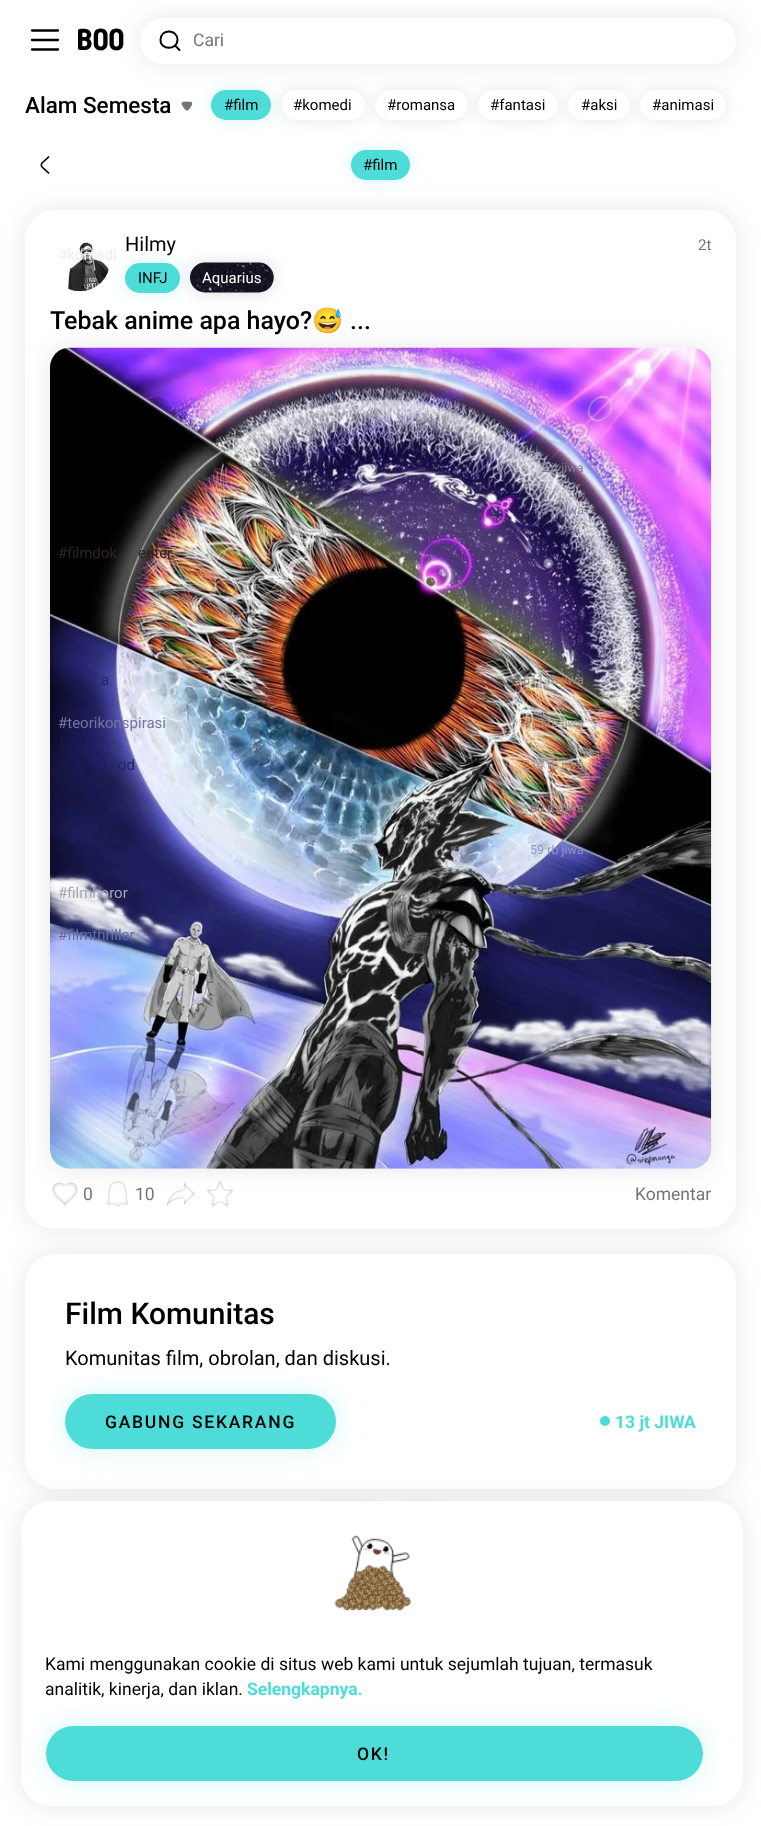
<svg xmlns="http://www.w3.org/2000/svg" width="761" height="1826">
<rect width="100%" height="100%" fill="#fff"/>
<path d="M32 30.5h26m-26 9.5h26m-26 9.5h26" fill="none" stroke="#000" stroke-width="2.3" stroke-linecap="round"/>
<text x="78" y="50" style="font-family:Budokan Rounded;font-size:30px;font-weight:bold;fill:#000">Boo</text>
<image x="181" y="101" width="12" height="10" href="media/1.png"/>
<rect x="211" y="90" width="60" height="30" rx="15" fill="#4edcd840" filter="blur(7.5px)"/>
<rect x="211" y="90" width="60" height="30" rx="15" fill="#4edcd8"/>
<rect x="281" y="90" width="84" height="30" rx="15" fill="#9e9e9e40" filter="blur(7.5px)"/>
<rect x="281" y="90" width="84" height="30" rx="15" fill="#fff"/>
<rect x="375" y="90" width="93" height="30" rx="15" fill="#9e9e9e40" filter="blur(7.5px)"/>
<rect x="375" y="90" width="93" height="30" rx="15" fill="#fff"/>
<rect x="478" y="90" width="80" height="30" rx="15" fill="#9e9e9e40" filter="blur(7.5px)"/>
<rect x="478" y="90" width="80" height="30" rx="15" fill="#fff"/>
<rect x="568" y="90" width="62" height="30" rx="15" fill="#9e9e9e40" filter="blur(7.5px)"/>
<rect x="568" y="90" width="62" height="30" rx="15" fill="#fff"/>
<rect x="640" y="90" width="86" height="30" rx="15" fill="#9e9e9e40" filter="blur(7.5px)"/>
<rect x="640" y="90" width="86" height="30" rx="15" fill="#fff"/>
<rect x="140" y="18" width="596" height="46" rx="23" fill="#9e9e9e40" filter="blur(12.5px)"/>
<rect x="140" y="18" width="596" height="46" rx="23" fill="#fff"/>
<path d="M179.5 50l-4.5-4.5m2.5-6c0 11-17.5 11-17 0c.5-11 16.5-10.5 17 0z" fill="none" stroke="#000" stroke-width="1.9" stroke-linecap="round" stroke-linejoin="round"/>
<text x="193" y="46" style="font-family:Roboto;font-size:17.5px;fill:#757575">Cari</text>
<text x="25" y="113" style="font-family:Roboto;font-size:22.5px;font-weight:500;fill:#000">Alam Semesta</text>
<text x="224" y="110" style="font-family:Roboto;font-size:15px;fill:#000">#film</text>
<text x="293" y="110" style="font-family:Roboto;font-size:15px;fill:#000">#komedi</text>
<text x="387" y="110" style="font-family:Roboto;font-size:15px;fill:#000">#romansa</text>
<text x="490" y="110" style="font-family:Roboto;font-size:15px;fill:#000">#fantasi</text>
<text x="581" y="110" style="font-family:Roboto;font-size:15px;fill:#000">#aksi</text>
<text x="652" y="110" style="font-family:Roboto;font-size:15px;fill:#000">#animasi</text>
<rect x="351" y="150" width="59" height="30" rx="15" fill="#4edcd840" filter="blur(7.5px)"/>
<rect x="351" y="150" width="59" height="30" rx="15" fill="#4edcd8"/>
<rect x="25" y="210" width="711" height="1019" rx="30" fill="#9e9e9e40" filter="blur(12.5px)"/>
<image x="40" y="156" width="10" height="18" href="media/2.png"/>
<text x="363" y="170" style="font-family:Roboto;font-size:15px;fill:#000">#film</text>
<rect x="25" y="210" width="711" height="1019" rx="30" fill="#fff"/>
<rect x="125" y="263" width="55" height="30" rx="15" fill="#4edcd840" filter="blur(7.5px)"/>
<image x="68" y="242" width="41" height="50" href="media/3.png"/>
<text x="125" y="251" style="font-family:Roboto;font-size:20px;fill:#000">Hilmy</text>
<text x="698" y="250" style="font-family:Roboto;font-size:15px;fill:#757575">2t</text>
<rect x="125" y="263" width="55" height="30" rx="15" fill="#4edcd8"/>
<text x="138" y="283" style="font-family:Roboto;font-size:15px;fill:#000">INFJ</text>
<rect x="190" y="263" width="84" height="30" rx="15" fill="#75757540" filter="blur(7.5px)"/>
<image x="189" y="262" width="85" height="31" href="media/4.png"/>
<text x="202" y="283" style="font-family:Roboto;font-size:15px;fill:#fff">Aquarius</text>
<text x="50" y="329" style="font-family:Roboto;font-size:25px;font-weight:500;fill:#000">Tebak anime apa hayo?</text>
<text x="312" y="329" style="font-family:Noto Color Emoji;font-size:25px;fill:#000">😅</text>
<text x="350" y="329" style="font-family:Roboto;font-size:25px;font-weight:500;fill:#000">...</text>
<rect x="50" y="348" width="661" height="821" rx="20" fill="#9e9e9e40" filter="blur(12.5px)"/>
<image x="50" y="347" width="662" height="822" href="media/5.png"/>
<image x="52" y="1182" width="26" height="24" href="media/6.png"/>
<text x="83" y="1200" style="font-family:Roboto;font-size:17.5px;fill:#757575">0</text>
<image x="107" y="1181" width="21" height="25" href="media/7.png"/>
<text x="135" y="1200" style="font-family:Roboto;font-size:17.5px;fill:#757575">10</text>
<image x="166" y="1183" width="29" height="24" href="media/8.png"/>
<image x="207" y="1181" width="26" height="25" href="media/9.png"/>
<text x="635" y="1200" style="font-family:Roboto;font-size:17.5px;fill:#757575">Komentar</text>
<rect x="25" y="1254" width="711" height="235" rx="30" fill="#9e9e9e40" filter="blur(12.5px)"/>
<rect x="25" y="1254" width="711" height="235" rx="30" fill="#fff"/>
<text x="65" y="1324" style="font-family:Roboto;font-size:30px;font-weight:500;fill:#000">Film Komunitas</text>
<text x="65" y="1365" style="font-family:Roboto;font-size:20px;fill:#000">Komunitas film, obrolan, dan diskusi.</text>
<rect x="65" y="1394" width="271" height="55" rx="27.5" fill="#4edcd840" filter="blur(12.5px)"/>
<rect x="65" y="1394" width="271" height="55" rx="27.5" fill="#4edcd8"/>
<text x="105" y="1428" style="font-family:Roboto;font-size:17.5px;font-weight:500;letter-spacing:1.75px;fill:#000">GABUNG SEKARANG</text>
<circle cx="605" cy="1421" r="5" fill="#4edcd8"/>
<text x="615" y="1428" style="font-family:Roboto;font-size:17.5px;font-weight:bold;fill:#4edcd8">13 jt JIWA</text>
<rect x="314" y="1509" width="71" height="30" rx="15" fill="#4edcd840" filter="blur(7.5px)"/>
<rect x="395" y="1509" width="55" height="30" rx="15" fill="#9e9e9e40" filter="blur(7.5px)"/>
<text x="58" y="260" style="font-family:Roboto;font-size:15px;fill:#eee">#komedi</text>
<text x="539" y="429" style="font-family:Roboto;font-size:12.5px;fill:#cf98ec">,</text>
<text x="541" y="472" style="font-family:Roboto;font-size:12.5px;fill:#857794">2 jt jiwa</text>
<text x="532" y="514" style="font-family:Roboto;font-size:12.5px;fill:#8c88a3">1,3 jt jiwa</text>
<text x="58" y="558" style="font-family:Roboto;font-size:15px;fill:#2f2522">#filmdok</text>
<text x="138" y="558" style="font-family:Roboto;font-size:15px;fill:#2f2522">enter</text>
<text x="523" y="642" style="font-family:Roboto;font-size:12.5px;fill:#493d66">9</text>
<text x="577" y="642" style="font-family:Roboto;font-size:12.5px;fill:#493d66">a</text>
<text x="101" y="685" style="font-family:Roboto;font-size:15px;fill:#242363">a</text>
<text x="523" y="684" style="font-family:Roboto;font-size:12.5px;fill:#9c8a7d">611 rb jiwa</text>
<text x="58" y="728" style="font-family:Roboto;font-size:15px;fill:#73749f">#teorikonspirasi</text>
<text x="523" y="727" style="font-family:Roboto;font-size:12.5px;fill:#aa9583">413 rb jiwa</text>
<text x="118" y="770" style="font-family:Roboto;font-size:15px;fill:#242363">od</text>
<text x="523" y="769" style="font-family:Roboto;font-size:12.5px;fill:#b4927e">214 rb jiwa</text>
<text x="530" y="812" style="font-family:Roboto;font-size:12.5px;fill:#94767a">60 rb jiwa</text>
<text x="530" y="854" style="font-family:Roboto;font-size:12.5px;fill:#9093cd">59 rb jiwa</text>
<text x="58" y="898" style="font-family:Roboto;font-size:15px;fill:#a5a6b9">#filmhoror</text>
<text x="58" y="940" style="font-family:Roboto;font-size:15px;fill:#636da2">#filmthriller</text>
<rect x="21" y="1501" width="722" height="305" rx="30" fill="#9e9e9e40" filter="blur(12.5px)"/>
<rect x="21" y="1501" width="722" height="305" rx="30" fill="#fff"/>
<image x="334" y="1535" width="77" height="76" href="media/10.png"/>
<text x="45" y="1670" style="font-family:Roboto;font-size:17.5px;fill:#000">Kami menggunakan cookie di situs web kami untuk sejumlah tujuan, termasuk</text>
<text x="45" y="1695" style="font-family:Roboto;font-size:17.5px;fill:#000">analitik, kinerja, dan iklan.</text>
<text x="247" y="1695" style="font-family:Roboto;font-size:17.5px;font-weight:bold;fill:#4edcd8">Selengkapnya.</text>
<rect x="46" y="1726" width="657" height="55" rx="27.5" fill="#4edcd840" filter="blur(12.5px)"/>
<rect x="46" y="1726" width="657" height="55" rx="27.5" fill="#4edcd8"/>
<text x="357" y="1760" style="font-family:Roboto;font-size:17.5px;font-weight:500;letter-spacing:1.75px;fill:#000">OK!</text>
</svg>
